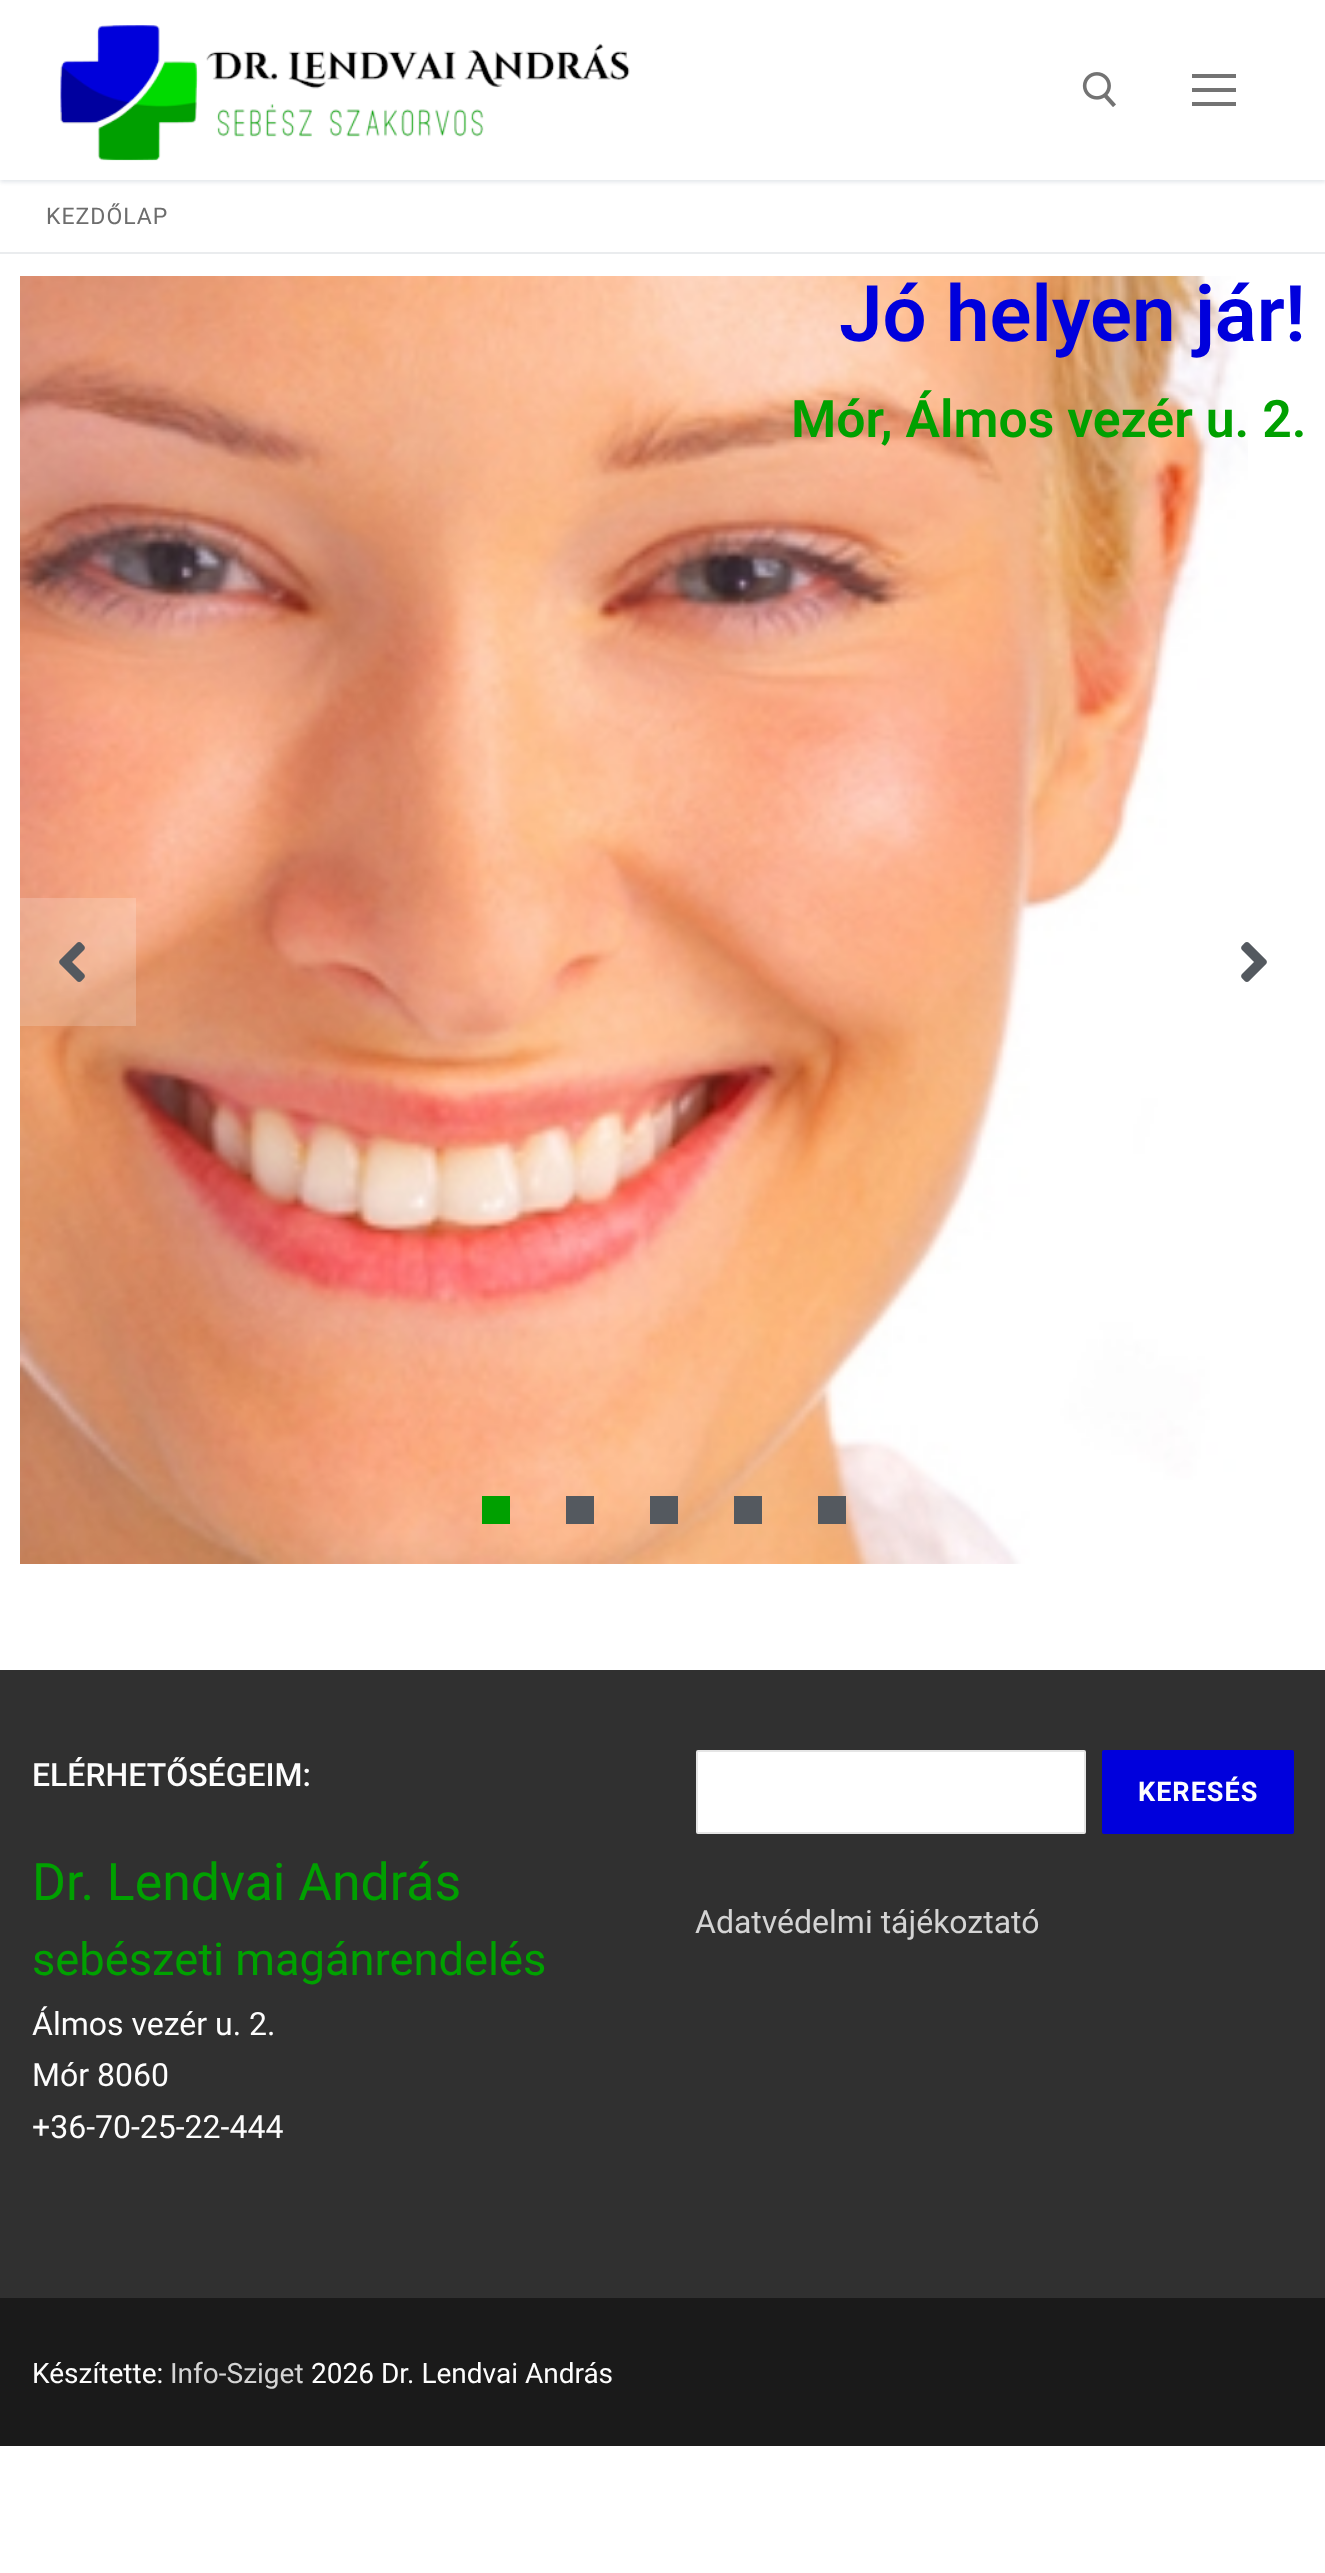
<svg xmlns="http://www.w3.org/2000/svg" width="1325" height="2573">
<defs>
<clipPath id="clip1"><rect x="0" y="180" width="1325" height="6"/></clipPath>
</defs>
<rect width="100%" height="100%" fill="#fff"/>
<g clip-path="url(#clip1)">
<rect y="2" width="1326" height="180" fill="#e1e5ea" filter="blur(2px)"/>
</g>
<image x="60" y="25" width="570" height="136" href="media/1.png"/>
<image x="1082" y="72" width="34" height="35" href="media/2.png"/>
<rect x="1192" y="88" width="44" height="4" fill="#737373"/>
<rect x="1192" y="74" width="44" height="4" fill="#737373"/>
<rect x="1192" y="102" width="44" height="4" fill="#737373"/>
<rect y="252" width="1325" height="2" fill="#eaecee"/>
<text x="46" y="224" style="font-family:Roboto;font-size:23px;letter-spacing:1px;fill:#6d6d6d">KEZDŐLAP</text>
<image x="20" y="276" width="1228" height="1288" href="media/3.png"/>
<text x="839" y="341" style="font-family:Roboto;font-size:78px;font-weight:600;fill:#0000dc">Jó helyen jár!</text>
<text x="791" y="437" style="font-family:Roboto;font-size:51.75px;font-weight:600;fill:#00a000">Mór, Álmos vezér u. 2.</text>
<rect x="20" y="898" width="116" height="128" fill="#ffffff30"/>
<image x="59" y="942" width="26" height="40" href="media/4.png"/>
<image x="1241" y="942" width="26" height="40" href="media/5.png"/>
<rect x="482" y="1496" width="28" height="28" fill="#00a000"/>
<rect x="566" y="1496" width="28" height="28" fill="#54595f"/>
<rect x="650" y="1496" width="28" height="28" fill="#54595f"/>
<rect x="734" y="1496" width="28" height="28" fill="#54595f"/>
<rect x="818" y="1496" width="28" height="28" fill="#54595f"/>
<rect y="1670" width="1325" height="628" fill="#303030"/>
<text x="32" y="1786" style="font-family:Roboto;font-size:32px;font-weight:500;fill:#fdfdfd">ELÉRHETŐSÉGEIM:</text>
<text x="32" y="1900" style="font-family:Roboto;font-size:51.75px;fill:#00a000">Dr. Lendvai András</text>
<text x="32" y="1975" style="font-family:Roboto;font-size:45.25px;fill:#00a000">sebészeti magánrendelés</text>
<text x="32" y="2035" style="font-family:Roboto;font-size:32px;fill:#fdfdfd">Álmos vezér u. 2.</text>
<text x="32" y="2086" style="font-family:Roboto;font-size:32px;fill:#fdfdfd">Mór 8060</text>
<text x="32" y="2138" style="font-family:Roboto;font-size:32px;fill:#fdfdfd">+36-70-25-22-444</text>
<rect x="697" y="1751" width="388" height="82" rx="1" fill="#fff" stroke="#e5e5e5" stroke-width="2"/>
<rect x="1102" y="1750" width="192" height="84" rx="2" fill="#0000dc"/>
<text x="1138" y="1801" style="font-family:Roboto;font-size:27px;font-weight:bold;letter-spacing:1px;fill:#fdfdfd">KERESÉS</text>
<text x="695" y="1933" style="font-family:Roboto;font-size:32px;fill:#d4d4d4">Adatvédelmi tájékoztató</text>
<rect y="2298" width="1325" height="148" fill="#1a1a1a"/>
<text x="32" y="2383" style="font-family:Roboto;font-size:28px;fill:#fdfdfd">Készítette:</text>
<text x="170" y="2383" style="font-family:Roboto;font-size:28px;fill:#d4d4d4">Info-Sziget</text>
<text x="311" y="2383" style="font-family:Roboto;font-size:28px;fill:#fdfdfd">2026 Dr. Lendvai András</text>
</svg>
